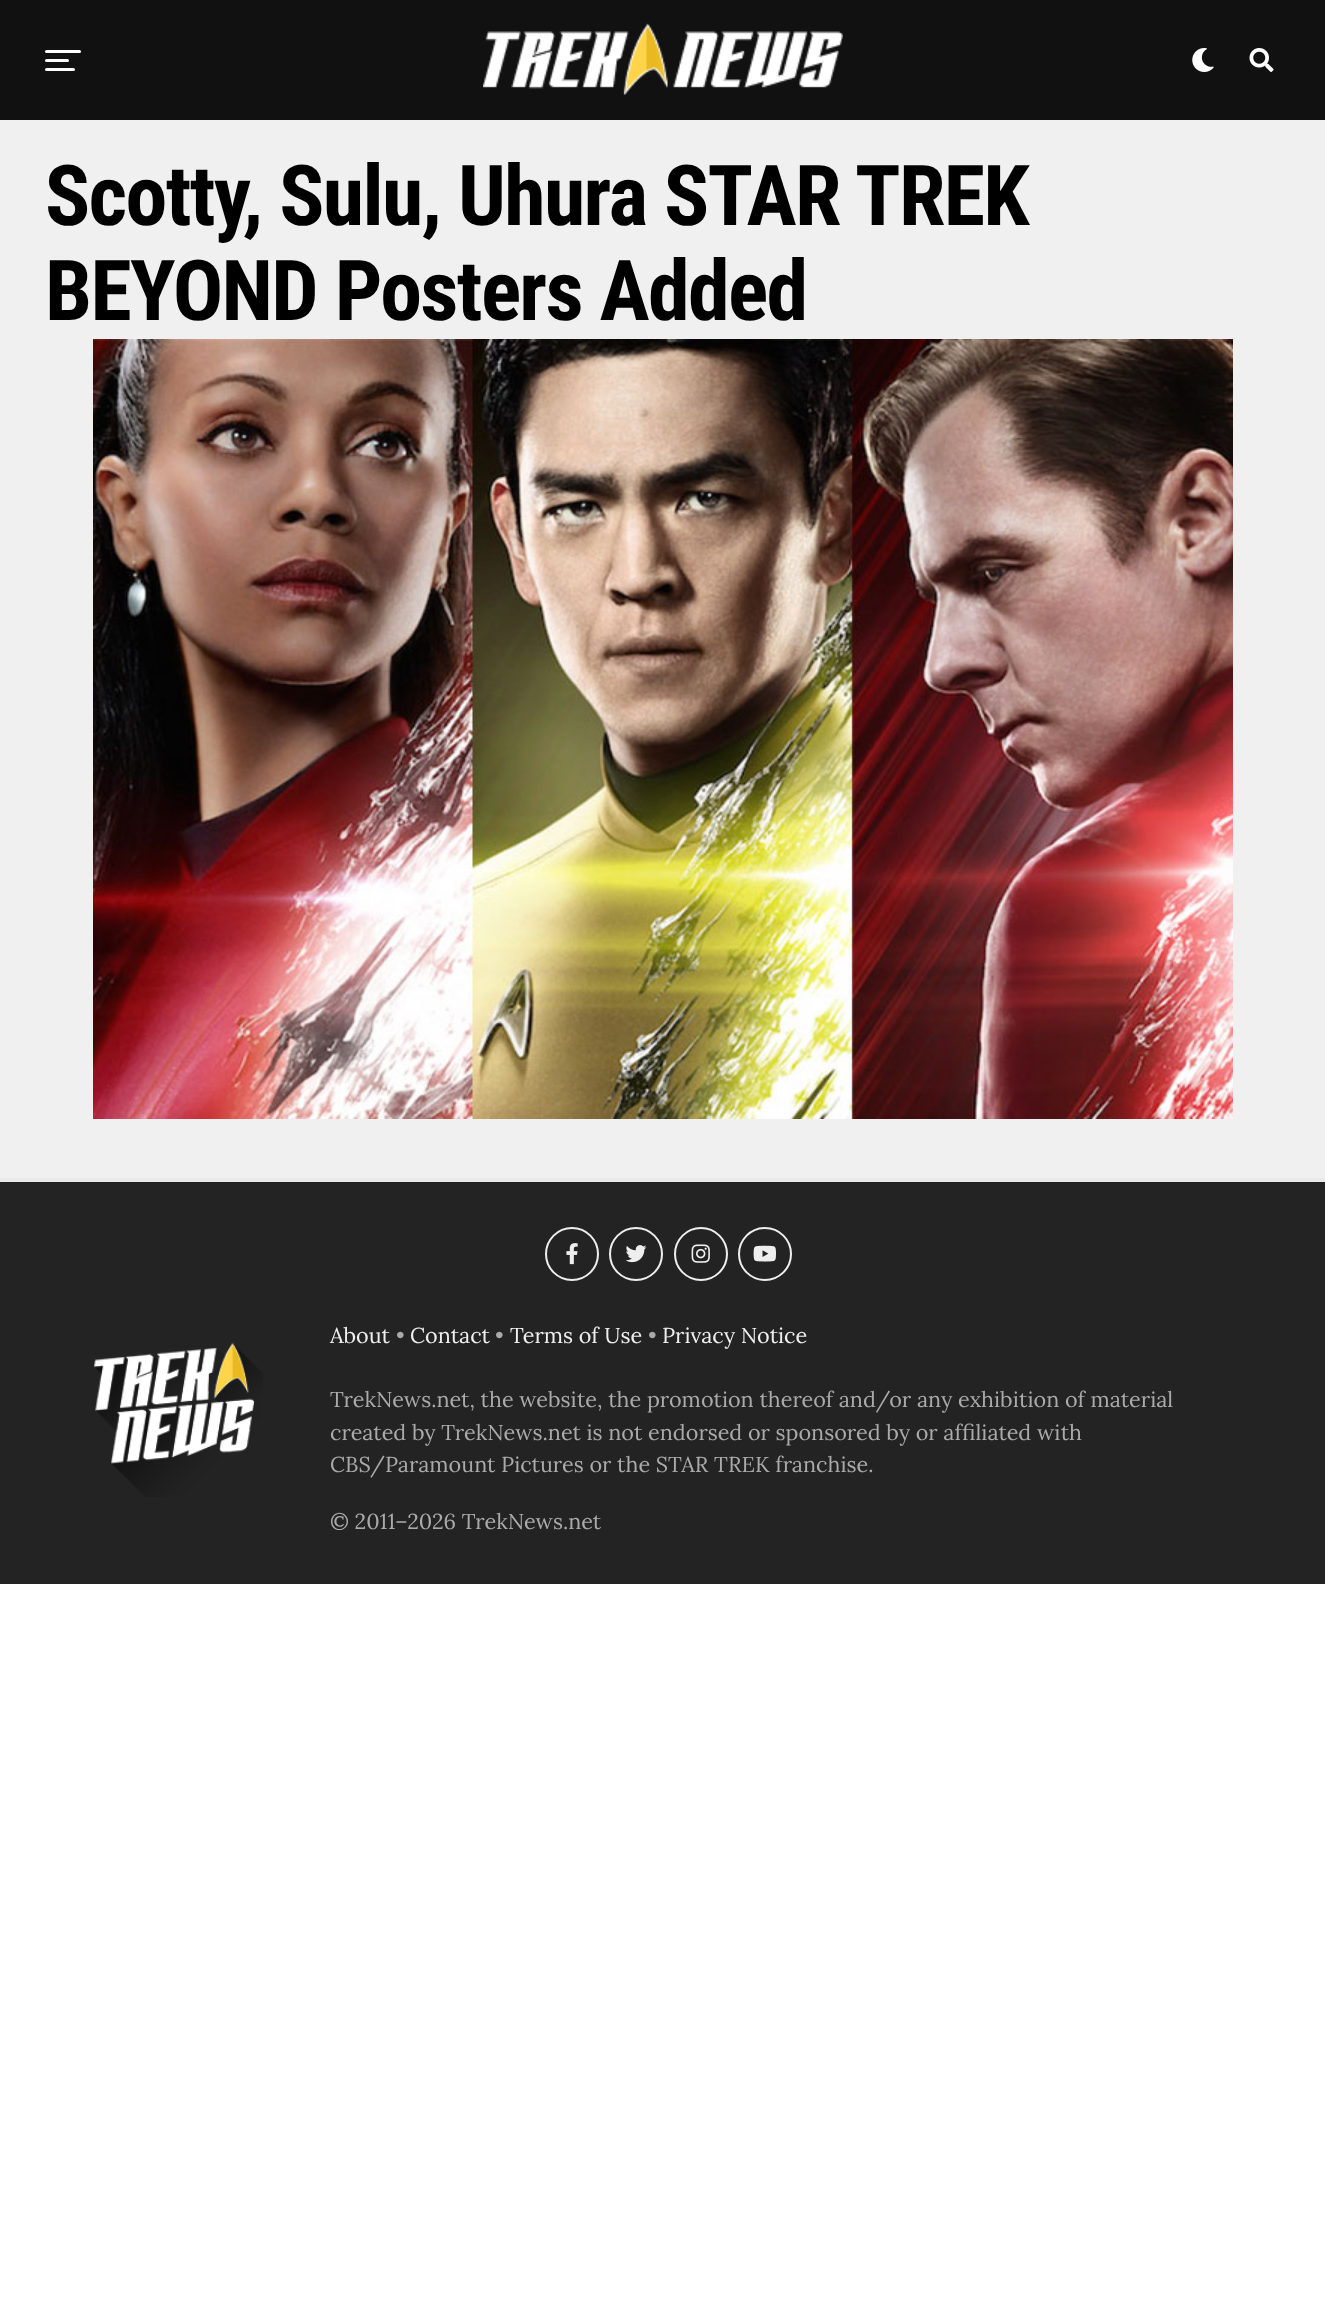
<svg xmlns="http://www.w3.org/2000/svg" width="1325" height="2321">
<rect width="100%" height="100%" fill="#fff"/>
<rect width="1325" height="120" fill="#111"/>
<rect x="45" y="50" width="36" height="3" rx="1.5" fill="#fff"/>
<rect x="45" y="59" width="24" height="3" rx="1.5" fill="#fff"/>
<rect x="45" y="68" width="30" height="3" rx="1.5" fill="#fff"/>
<image x="483" y="23" width="360" height="72" href="media/1.png"/>
<image x="1192" y="48" width="22" height="24" href="media/2.png"/>
<image x="1249" y="48" width="25" height="24" href="media/3.png"/>
<rect y="120" width="1325" height="1058" fill="#f0f0f0"/>
<rect y="1178" width="1325" height="4" fill="#e9e9e9"/>
<text x="45" y="225" style="font-family:Roboto Condensed;font-size:84px;font-weight:bold;letter-spacing:-1.7px;fill:#000">Scotty, Sulu, Uhura STAR TREK</text>
<text x="45" y="320" style="font-family:Roboto Condensed;font-size:84px;font-weight:bold;letter-spacing:-1.7px;fill:#000">BEYOND Posters Added</text>
<image x="93" y="339" width="1140" height="780" href="media/4.png"/>
<rect y="1183" width="1325" height="401" fill="#232323"/>
<rect y="1182" width="1325" height="1" fill="#222"/>
<circle cx="572" cy="1254" r="26" fill="none" stroke="#eee" stroke-width="2"/>
<image x="566" y="1243" width="12" height="22" href="media/5.png"/>
<circle cx="636" cy="1254" r="26" fill="none" stroke="#eee" stroke-width="2"/>
<image x="625" y="1245" width="22" height="18" href="media/6.png"/>
<circle cx="701" cy="1254" r="26" fill="none" stroke="#eee" stroke-width="2"/>
<image x="691" y="1244" width="19" height="19" href="media/7.png"/>
<circle cx="765" cy="1254" r="26" fill="none" stroke="#eee" stroke-width="2"/>
<image x="753" y="1245" width="23" height="17" href="media/8.png"/>
<image x="94" y="1342" width="169" height="155" href="media/9.png"/>
<text x="330" y="1343" style="font-family:Lora;font-size:21.6px;fill:#eee">About</text>
<text x="396" y="1343" style="font-family:Lora;font-size:21.6px;fill:#aaa">•</text>
<text x="410" y="1343" style="font-family:Lora;font-size:21.6px;fill:#eee">Contact</text>
<text x="495" y="1343" style="font-family:Lora;font-size:21.6px;fill:#aaa">•</text>
<text x="510" y="1343" style="font-family:Lora;font-size:21.6px;fill:#eee">Terms of Use</text>
<text x="648" y="1343" style="font-family:Lora;font-size:21.6px;fill:#aaa">•</text>
<text x="662" y="1343" style="font-family:Lora;font-size:21.6px;fill:#eee">Privacy Notice</text>
<text x="330" y="1407" style="font-family:Lora;font-size:21.6px;fill:#aaa">TrekNews.net, the website, the promotion thereof and/or any exhibition of material</text>
<text x="330" y="1440" style="font-family:Lora;font-size:21.6px;fill:#aaa">created by TrekNews.net is not endorsed or sponsored by or affiliated with</text>
<text x="330" y="1472" style="font-family:Lora;font-size:21.6px;fill:#aaa">CBS/Paramount Pictures or the STAR TREK franchise.</text>
<text x="330" y="1529" style="font-family:Lora;font-size:21.6px;fill:#aaa">© 2011–2026 TrekNews.net</text>
</svg>
